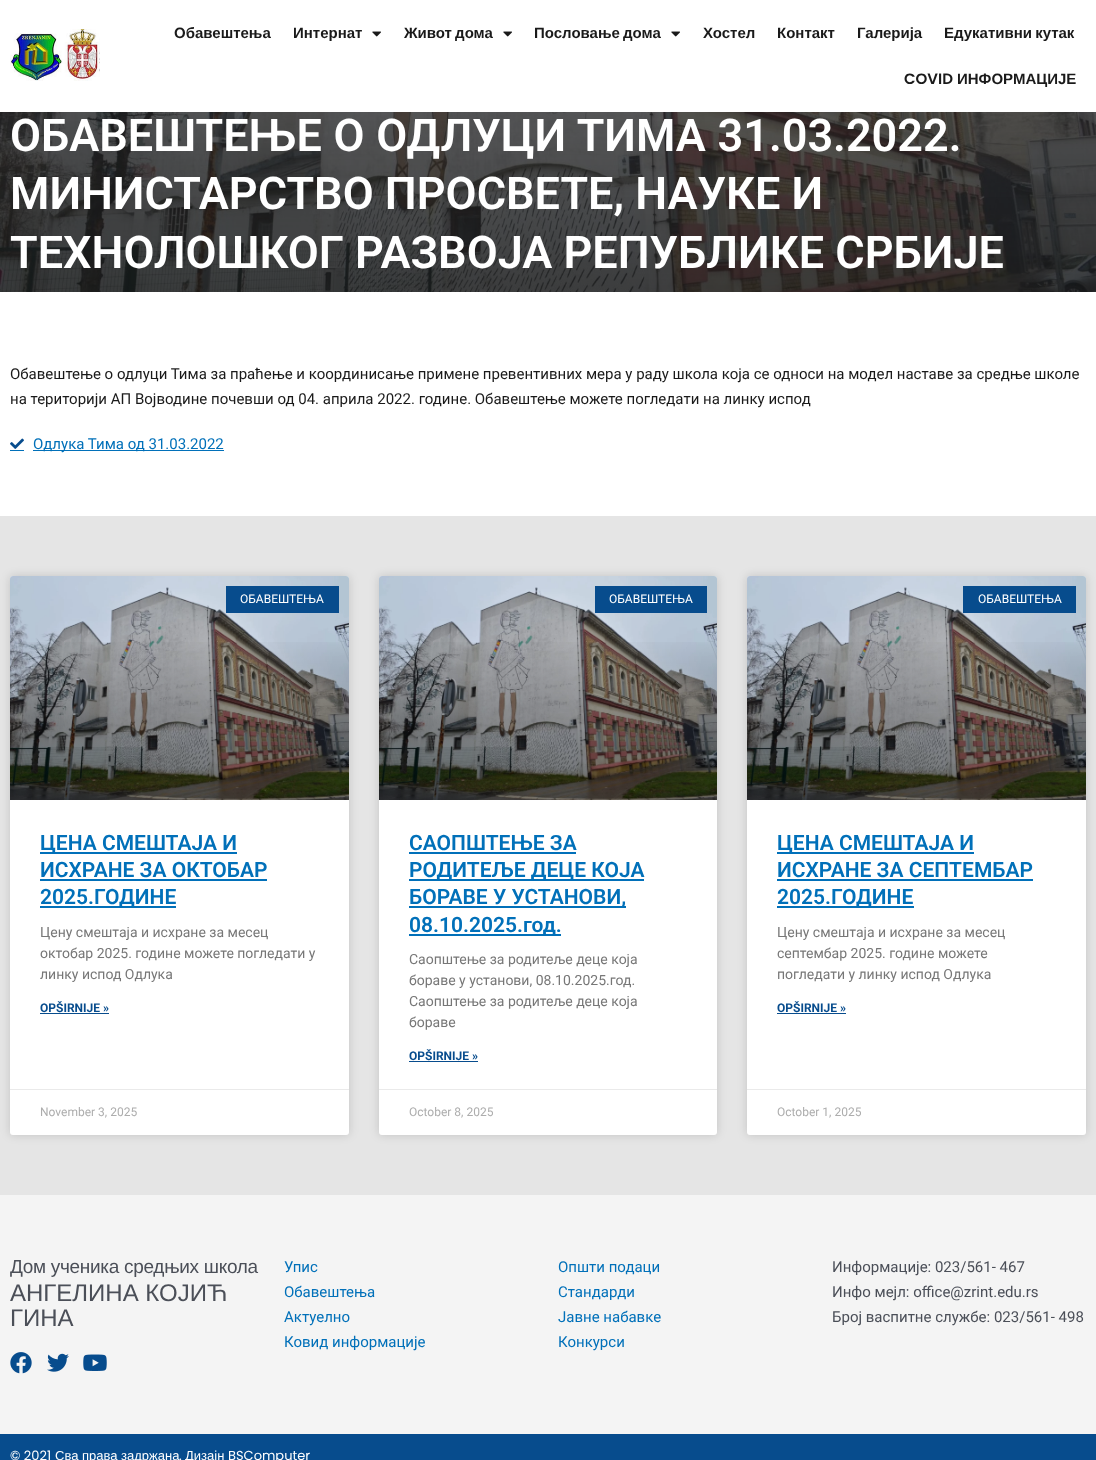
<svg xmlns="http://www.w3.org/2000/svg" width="1096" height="1460">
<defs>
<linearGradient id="g1" gradientUnits="userSpaceOnUse" x1="180" y1="800" x2="180" y2="576"><stop offset="0" stop-color="#000" stop-opacity="0.35"/><stop offset="0.75" stop-color="#000" stop-opacity="0"/></linearGradient>
<linearGradient id="g2" gradientUnits="userSpaceOnUse" x1="548" y1="800" x2="548" y2="576"><stop offset="0" stop-color="#000" stop-opacity="0.35"/><stop offset="0.75" stop-color="#000" stop-opacity="0"/></linearGradient>
<linearGradient id="g3" gradientUnits="userSpaceOnUse" x1="917" y1="800" x2="917" y2="576"><stop offset="0" stop-color="#000" stop-opacity="0.35"/><stop offset="0.75" stop-color="#000" stop-opacity="0"/></linearGradient>
</defs>
<rect width="100%" height="100%" fill="#fff"/>
<image x="10" y="29" width="90" height="52" href="media/1.png"/>
<text x="174" y="38" style="font-family:Liberation Sans;font-size:15px;font-weight:bold;fill:#1a1a1a">Обавештења</text>
<text x="293" y="38" style="font-family:Liberation Sans;font-size:15px;font-weight:bold;fill:#1a1a1a">Интернат</text>
<image x="372" y="31" width="9" height="6" href="media/2.png"/>
<text x="404" y="38" word-spacing="-1" style="font-family:Liberation Sans;font-size:15px;font-weight:bold;fill:#1a1a1a">Живот дома</text>
<image x="503" y="31" width="9" height="6" href="media/2.png"/>
<text x="534" y="38" word-spacing="-1" style="font-family:Liberation Sans;font-size:15px;font-weight:bold;fill:#1a1a1a">Пословање дома</text>
<image x="671" y="31" width="9" height="6" href="media/2.png"/>
<text x="703" y="38" style="font-family:Liberation Sans;font-size:15px;font-weight:bold;fill:#1a1a1a">Хостел</text>
<text x="777" y="38" style="font-family:Liberation Sans;font-size:15px;font-weight:bold;fill:#1a1a1a">Контакт</text>
<text x="857" y="38" style="font-family:Liberation Sans;font-size:15px;font-weight:bold;fill:#1a1a1a">Галерија</text>
<text x="944" y="38" word-spacing="-1" style="font-family:Liberation Sans;font-size:15px;font-weight:bold;fill:#1a1a1a">Едукативни кутак</text>
<text x="904" y="84" style="font-family:Poppins;font-size:15px;font-weight:600;fill:#1a1a1a">COVID</text>
<text x="957" y="84" style="font-family:Liberation Sans;font-size:15px;font-weight:bold;fill:#1a1a1a">ИНФОРМАЦИЈЕ</text>
<image x="0" y="112" width="1096" height="180" href="media/3.png"/>
<text x="10" y="151" word-spacing="0.5" style="font-family:Roboto;font-size:45px;font-weight:600;fill:#fff">ОБАВЕШТЕЊЕ О ОДЛУЦИ ТИМА 31.03.2022.</text>
<text x="10" y="209" style="font-family:Roboto;font-size:45px;font-weight:600;fill:#fff">МИНИСТАРСТВО ПРОСВЕТЕ, НАУКЕ И</text>
<text x="10" y="268" style="font-family:Roboto;font-size:45px;font-weight:600;fill:#fff">ТЕХНОЛОШКОГ РАЗВОЈА РЕПУБЛИКЕ СРБИЈЕ</text>
<text x="10" y="379" style="font-family:Roboto;font-size:15px;fill:#1a1a1a">Обавештење о одлуци Тима за праћење и координисање примене превентивних мера у раду школа која се односи на модел наставе за средње школе</text>
<text x="10" y="404" style="font-family:Roboto;font-size:15px;fill:#1a1a1a">на територији АП Војводине почевши од 04. априла 2022. године. Обавештење можете погледати на линку испод</text>
<image x="10" y="438" width="14" height="11" href="media/4.png"/>
<rect x="10" y="450" width="14" height="1" fill="#0170b9"/>
<rect x="33" y="450" width="191" height="1" fill="#0170b9"/>
<text x="33" y="449" style="font-family:Roboto;font-size:15px;fill:#0170b9">Oдлука Тима од 31.03.2022</text>
<rect y="516" width="1096" height="679" fill="#e5e5e5"/>
<rect x="10" y="576" width="339" height="559" rx="3" fill="#00000026" filter="blur(5px)"/>
<rect x="10" y="576" width="339" height="559" rx="3" fill="#fff"/>
<image x="10" y="576" width="339" height="224" href="media/5.png"/>
<rect x="10" y="642" width="339" height="158" fill="url(#g1)"/>
<rect x="226" y="586" width="113" height="27" fill="#074c8d"/>
<text x="240" y="603" style="font-family:Roboto;font-size:12px;fill:#fff">ОБАВЕШТЕЊА</text>
<rect x="40" y="852" width="197" height="2" fill="#0170b9"/>
<text x="40" y="850" style="font-family:Roboto;font-size:21px;font-weight:600;fill:#0170b9">ЦЕНА СМЕШТАЈА И</text>
<text x="40" y="877" style="font-family:Roboto;font-size:21px;font-weight:600;fill:#0170b9">ИСХРАНЕ ЗА ОКТОБАР</text>
<rect x="40" y="879" width="227" height="2" fill="#0170b9"/>
<rect x="40" y="906" width="136" height="2" fill="#0170b9"/>
<text x="40" y="904" style="font-family:Roboto;font-size:21px;font-weight:600;fill:#0170b9">2025.ГОДИНЕ</text>
<text x="40" y="937" style="font-family:Roboto;font-size:14px;fill:#777">Цену смештаја и исхране за месец</text>
<text x="40" y="958" style="font-family:Roboto;font-size:14px;fill:#777">октобар 2025. године можете погледати у</text>
<text x="40" y="979" style="font-family:Roboto;font-size:14px;fill:#777">линку испод Одлука</text>
<text x="40" y="1012" style="font-family:Roboto;font-size:12px;font-weight:bold;fill:#074c8d">OPŠIRNIJE »</text>
<rect x="40" y="1013" width="69" height="1" fill="#074c8d"/>
<rect x="10" y="1089" width="339" height="1" fill="#eaeaea"/>
<text x="40" y="1116" style="font-family:Roboto;font-size:12px;fill:#adadad">November 3, 2025</text>
<rect x="379" y="576" width="338" height="559" rx="3" fill="#00000026" filter="blur(5px)"/>
<rect x="379" y="576" width="338" height="559" rx="3" fill="#fff"/>
<image x="379" y="576" width="338" height="224" href="media/6.png"/>
<rect x="379" y="642" width="338" height="158" fill="url(#g2)"/>
<rect x="595" y="586" width="112" height="27" fill="#074c8d"/>
<text x="609" y="603" style="font-family:Roboto;font-size:12px;fill:#fff">ОБАВЕШТЕЊА</text>
<text x="409" y="850" style="font-family:Roboto;font-size:21px;font-weight:600;fill:#0170b9">САОПШТЕЊЕ ЗА</text>
<rect x="409" y="852" width="167" height="2" fill="#0170b9"/>
<rect x="409" y="879" width="235" height="2" fill="#0170b9"/>
<text x="409" y="877" style="font-family:Roboto;font-size:21px;font-weight:600;fill:#0170b9">РОДИТЕЉЕ ДЕЦЕ КОЈА</text>
<rect x="409" y="906" width="217" height="2" fill="#0170b9"/>
<text x="409" y="904" style="font-family:Roboto;font-size:21px;font-weight:600;fill:#0170b9">БОРАВЕ У УСТАНОВИ,</text>
<rect x="409" y="934" width="152" height="2" fill="#0170b9"/>
<text x="409" y="932" style="font-family:Roboto;font-size:21px;font-weight:600;fill:#0170b9">08.10.2025.год.</text>
<text x="409" y="964" style="font-family:Roboto;font-size:14px;fill:#777">Саопштење за родитеље деце која</text>
<text x="409" y="985" style="font-family:Roboto;font-size:14px;fill:#777">бораве у установи, 08.10.2025.год.</text>
<text x="409" y="1006" style="font-family:Roboto;font-size:14px;fill:#777">Саопштење за родитеље деце која</text>
<text x="409" y="1027" style="font-family:Roboto;font-size:14px;fill:#777">бораве</text>
<text x="409" y="1060" style="font-family:Roboto;font-size:12px;font-weight:bold;fill:#074c8d">OPŠIRNIJE »</text>
<rect x="409" y="1061" width="69" height="1" fill="#074c8d"/>
<rect x="379" y="1089" width="338" height="1" fill="#eaeaea"/>
<text x="409" y="1116" style="font-family:Roboto;font-size:12px;fill:#adadad">October 8, 2025</text>
<rect x="747" y="576" width="339" height="559" rx="3" fill="#00000026" filter="blur(5px)"/>
<rect x="747" y="576" width="339" height="559" rx="3" fill="#fff"/>
<image x="747" y="576" width="339" height="224" href="media/7.png"/>
<rect x="747" y="642" width="339" height="158" fill="url(#g3)"/>
<rect x="963" y="586" width="113" height="27" fill="#074c8d"/>
<text x="978" y="603" style="font-family:Roboto;font-size:12px;fill:#fff">ОБАВЕШТЕЊА</text>
<rect x="777" y="852" width="197" height="2" fill="#0170b9"/>
<text x="777" y="850" style="font-family:Roboto;font-size:21px;font-weight:600;fill:#0170b9">ЦЕНА СМЕШТАЈА И</text>
<text x="777" y="877" style="font-family:Roboto;font-size:21px;font-weight:600;fill:#0170b9">ИСХРАНЕ ЗА СЕПТЕМБАР</text>
<rect x="777" y="879" width="256" height="2" fill="#0170b9"/>
<rect x="777" y="906" width="137" height="2" fill="#0170b9"/>
<text x="777" y="904" style="font-family:Roboto;font-size:21px;font-weight:600;fill:#0170b9">2025.ГОДИНЕ</text>
<text x="777" y="937" style="font-family:Roboto;font-size:14px;fill:#777">Цену смештаја и исхране за месец</text>
<text x="777" y="958" style="font-family:Roboto;font-size:14px;fill:#777">септембар 2025. године можете</text>
<text x="777" y="979" style="font-family:Roboto;font-size:14px;fill:#777">погледати у линку испод Одлука</text>
<text x="777" y="1012" style="font-family:Roboto;font-size:12px;font-weight:bold;fill:#074c8d">OPŠIRNIJE »</text>
<rect x="777" y="1013" width="69" height="1" fill="#074c8d"/>
<rect x="747" y="1089" width="339" height="1" fill="#eaeaea"/>
<text x="777" y="1116" style="font-family:Roboto;font-size:12px;fill:#adadad">October 1, 2025</text>
<rect y="1195" width="1096" height="239" fill="#f4f4f4"/>
<text x="10" y="1273" style="font-family:Liberation Sans;font-size:19px;letter-spacing:-0.3px;fill:#4b4f58">Дом ученика средњих школа</text>
<text x="10" y="1301" style="font-family:Liberation Sans;font-size:24px;fill:#4b4f58">АНГЕЛИНА КОЈИЋ</text>
<text x="10" y="1326" style="font-family:Liberation Sans;font-size:24px;fill:#4b4f58">ГИНА</text>
<image x="10" y="1352" width="22" height="22" href="media/8.png"/>
<image x="47" y="1353" width="22" height="19" href="media/9.png"/>
<image x="83" y="1354" width="24" height="17" href="media/10.png"/>
<text x="284" y="1272" style="font-family:Roboto;font-size:15px;fill:#0170b9">Упис</text>
<text x="284" y="1297" style="font-family:Roboto;font-size:15px;fill:#0170b9">Обавештења</text>
<text x="284" y="1322" style="font-family:Roboto;font-size:15px;fill:#0170b9">Актуелно</text>
<text x="284" y="1347" style="font-family:Roboto;font-size:15px;fill:#0170b9">Ковид информације</text>
<text x="558" y="1272" style="font-family:Roboto;font-size:15px;fill:#0170b9">Општи подаци</text>
<text x="558" y="1297" style="font-family:Roboto;font-size:15px;fill:#0170b9">Стандарди</text>
<text x="558" y="1322" style="font-family:Roboto;font-size:15px;fill:#0170b9">Јавне набавке</text>
<text x="558" y="1347" style="font-family:Roboto;font-size:15px;fill:#0170b9">Конкурси</text>
<text x="832" y="1272" style="font-family:Roboto;font-size:15px;fill:#4b4f58">Информације: 023/561- 467</text>
<text x="832" y="1297" style="font-family:Roboto;font-size:15px;fill:#4b4f58">Инфо мејл: office@zrint.edu.rs</text>
<text x="832" y="1322" style="font-family:Roboto;font-size:15px;fill:#4b4f58">Број васпитне службе: 023/561- 498</text>
<rect y="1434" width="1096" height="26" fill="#074c8d"/>
<text x="10" y="1460" style="font-family:Poppins;font-size:13px;fill:#fff">© 2021</text>
<text x="55" y="1460" style="font-family:Liberation Sans;font-size:13px;fill:#fff">Сва права задржана</text>
<text x="179" y="1460" style="font-family:Poppins;font-size:13px;fill:#fff">.</text>
<text x="185" y="1460" style="font-family:Liberation Sans;font-size:13px;fill:#fff">Дизајн</text>
<text x="228" y="1460" style="font-family:Poppins;font-size:13px;fill:#fff">BSComputer</text>
</svg>
